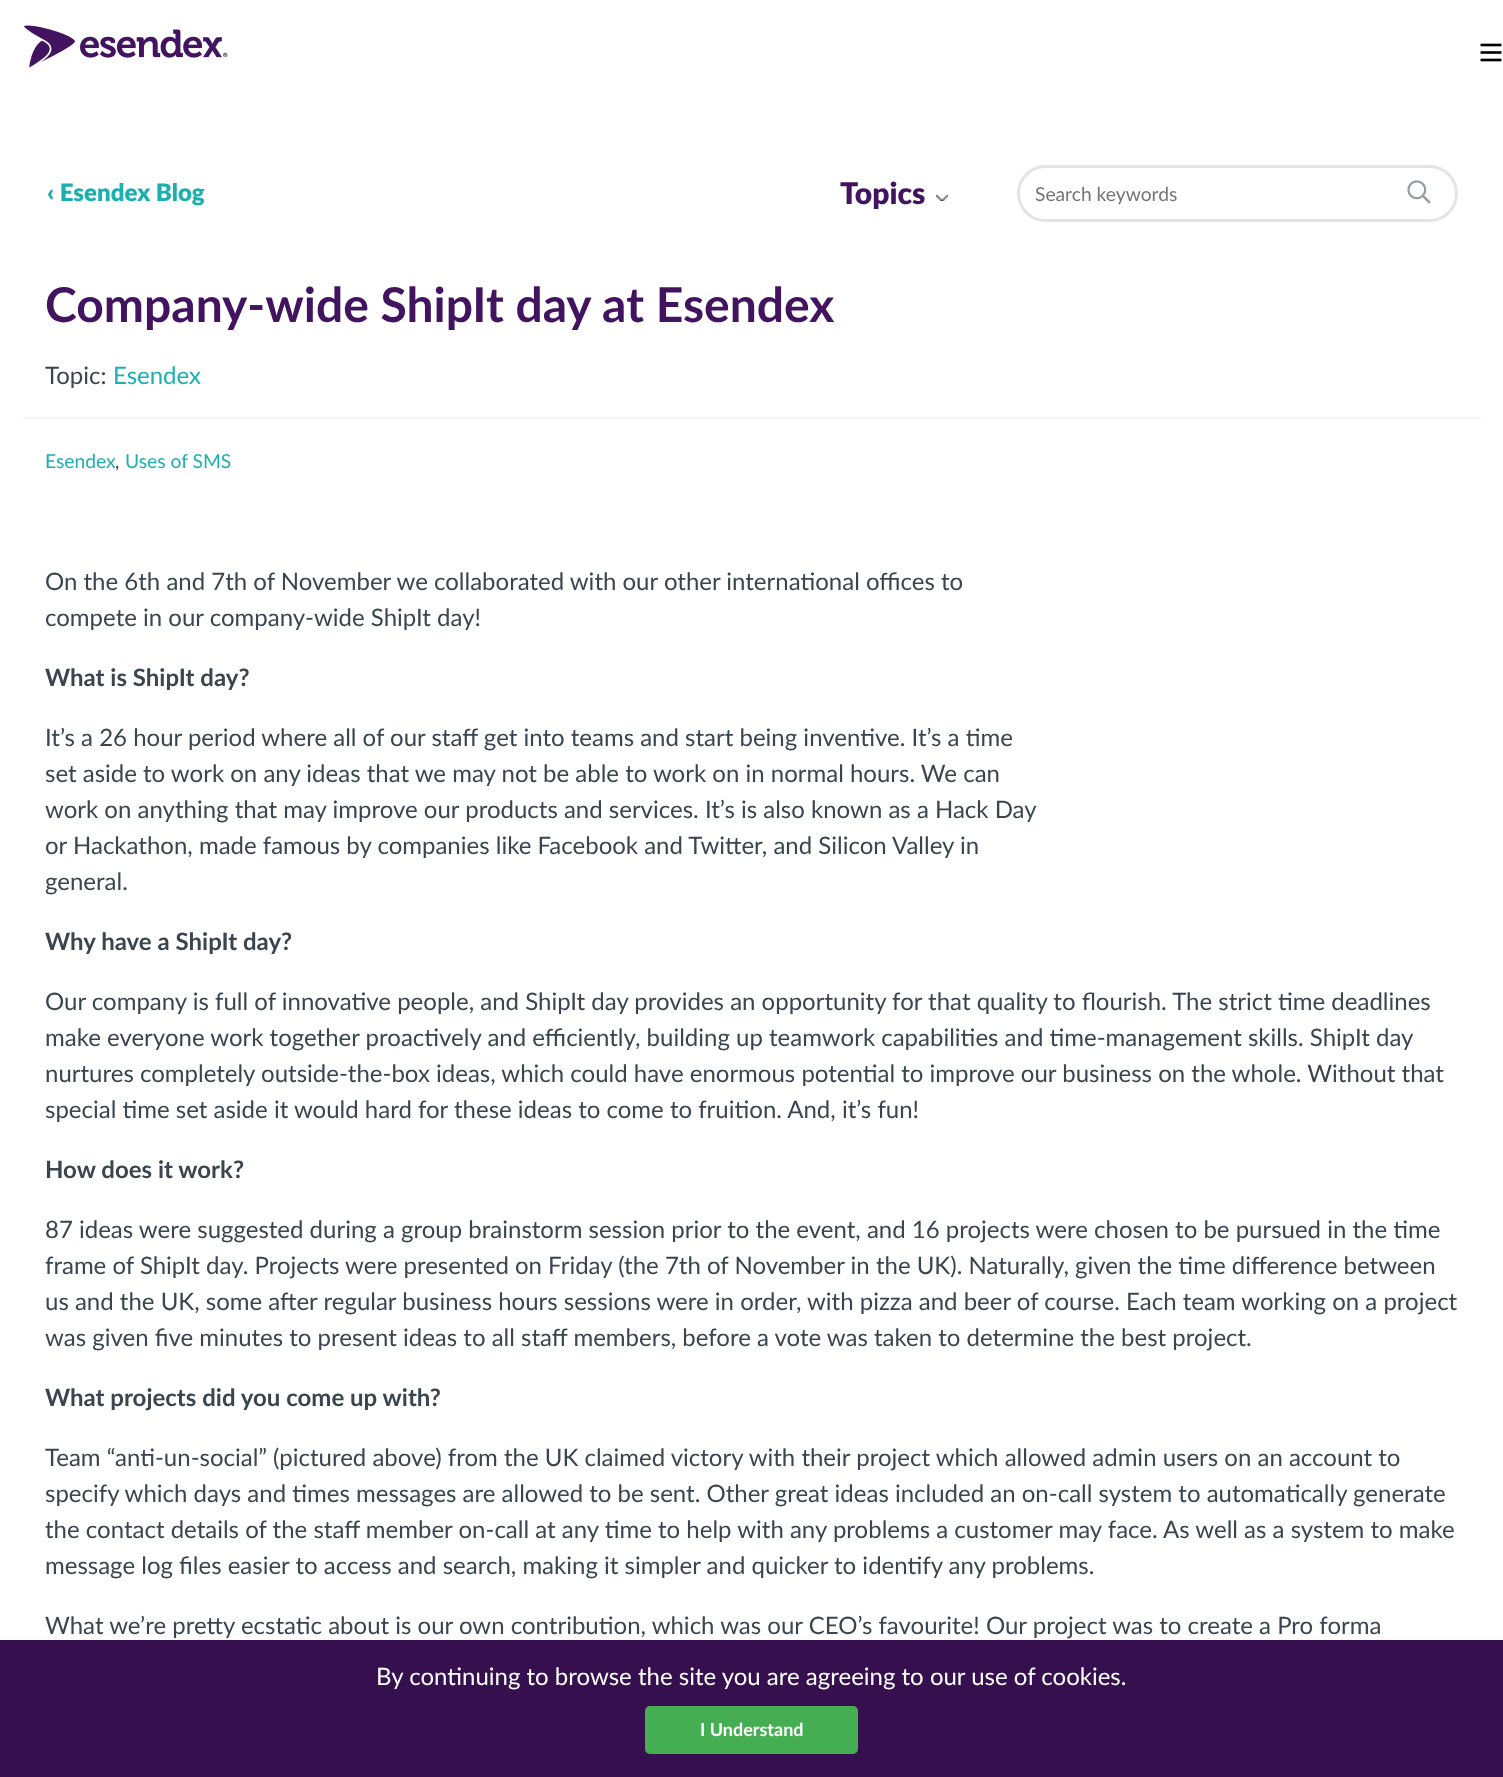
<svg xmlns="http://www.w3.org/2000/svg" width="1503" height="1777">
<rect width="100%" height="100%" fill="#fff"/>
<image x="23" y="25" width="205" height="43" href="media/1.png"/>
<image x="1480" y="43" width="22" height="19" href="media/2.png"/>
<text x="47" y="201" style="font-family:Lato;font-size:24px;font-weight:900;fill:#1bb0b0">‹ Esendex Blog</text>
<text x="840" y="204" style="font-family:Lato;font-size:30px;font-weight:900;fill:#42145f">Topics</text>
<image x="936" y="194" width="12" height="7" href="media/3.png"/>
<rect x="1018.5" y="166.5" width="438" height="54" rx="27" fill="none" stroke="#e3e5e5" stroke-width="3"/>
<text x="1035" y="201" style="font-family:Lato;font-size:19.25px;fill:#757575">Search keywords</text>
<image x="1407" y="180" width="24" height="24" href="media/4.png"/>
<text x="45" y="322" style="font-family:Lato;font-size:48px;font-weight:bold;fill:#42145f">Company-wide ShipIt day at Esendex</text>
<text x="45" y="384" style="font-family:Lato;font-size:24px;fill:#3b454f">Topic:</text>
<text x="113" y="384" style="font-family:Lato;font-size:24px;fill:#1bb0b0">Esendex</text>
<rect x="23" y="417" width="1458" height="2" fill="#f6f6f6"/>
<text x="45" y="468" style="font-family:Lato;font-size:19.25px;fill:#1bb0b0">Esendex</text>
<text x="115" y="468" style="font-family:Lato;font-size:19.25px;fill:#3b454f">,</text>
<text x="125" y="468" style="font-family:Lato;font-size:19.25px;fill:#1bb0b0">Uses of SMS</text>
<text x="45" y="590" style="font-family:Lato;font-size:24px;fill:#3b454f">On the 6th and 7th of November we collaborated with our other international offices to</text>
<text x="45" y="626" style="font-family:Lato;font-size:24px;fill:#3b454f">compete in our company-wide ShipIt day!</text>
<text x="45" y="686" style="font-family:Lato;font-size:24px;font-weight:bold;fill:#3b454f">What is ShipIt day?</text>
<text x="45" y="746" style="font-family:Lato;font-size:24px;fill:#3b454f">It’s a 26 hour period where all of our staff get into teams and start being inventive. It’s a time</text>
<text x="45" y="782" style="font-family:Lato;font-size:24px;fill:#3b454f">set aside to work on any ideas that we may not be able to work on in normal hours. We can</text>
<text x="45" y="818" style="font-family:Lato;font-size:24px;fill:#3b454f">work on anything that may improve our products and services. It’s is also known as a Hack Day</text>
<text x="45" y="854" style="font-family:Lato;font-size:24px;fill:#3b454f">or Hackathon, made famous by companies like Facebook and Twitter, and Silicon Valley in</text>
<text x="45" y="890" style="font-family:Lato;font-size:24px;fill:#3b454f">general.</text>
<text x="45" y="950" style="font-family:Lato;font-size:24px;font-weight:bold;fill:#3b454f">Why have a ShipIt day?</text>
<text x="45" y="1010" style="font-family:Lato;font-size:24px;fill:#3b454f">Our company is full of innovative people, and ShipIt day provides an opportunity for that quality to flourish. The strict time deadlines</text>
<text x="45" y="1046" style="font-family:Lato;font-size:24px;fill:#3b454f">make everyone work together proactively and efficiently, building up teamwork capabilities and time-management skills. ShipIt day</text>
<text x="45" y="1082" style="font-family:Lato;font-size:24px;fill:#3b454f">nurtures completely outside-the-box ideas, which could have enormous potential to improve our business on the whole. Without that</text>
<text x="45" y="1118" style="font-family:Lato;font-size:24px;fill:#3b454f">special time set aside it would hard for these ideas to come to fruition. And, it’s fun!</text>
<text x="45" y="1178" style="font-family:Lato;font-size:24px;font-weight:bold;fill:#3b454f">How does it work?</text>
<text x="45" y="1238" style="font-family:Lato;font-size:24px;fill:#3b454f">87 ideas were suggested during a group brainstorm session prior to the event, and 16 projects were chosen to be pursued in the time</text>
<text x="45" y="1274" style="font-family:Lato;font-size:24px;fill:#3b454f">frame of ShipIt day. Projects were presented on Friday (the 7th of November in the UK). Naturally, given the time difference between</text>
<text x="45" y="1310" style="font-family:Lato;font-size:24px;fill:#3b454f">us and the UK, some after regular business hours sessions were in order, with pizza and beer of course. Each team working on a project</text>
<text x="45" y="1346" style="font-family:Lato;font-size:24px;fill:#3b454f">was given five minutes to present ideas to all staff members, before a vote was taken to determine the best project.</text>
<text x="45" y="1406" style="font-family:Lato;font-size:24px;font-weight:bold;fill:#3b454f">What projects did you come up with?</text>
<text x="45" y="1466" style="font-family:Lato;font-size:24px;fill:#3b454f">Team “anti-un-social” (pictured above) from the UK claimed victory with their project which allowed admin users on an account to</text>
<text x="45" y="1502" style="font-family:Lato;font-size:24px;fill:#3b454f">specify which days and times messages are allowed to be sent. Other great ideas included an on-call system to automatically generate</text>
<text x="45" y="1538" style="font-family:Lato;font-size:24px;fill:#3b454f">the contact details of the staff member on-call at any time to help with any problems a customer may face. As well as a system to make</text>
<text x="45" y="1574" style="font-family:Lato;font-size:24px;fill:#3b454f">message log files easier to access and search, making it simpler and quicker to identify any problems.</text>
<text x="45" y="1634" style="font-family:Lato;font-size:24px;fill:#3b454f">What we’re pretty ecstatic about is our own contribution, which was our CEO’s favourite! Our project was to create a Pro forma</text>
<rect y="1640" width="1503" height="137" fill="#350f4e"/>
<text x="376" y="1685" style="font-family:Lato;font-size:24px;fill:#fff">By continuing to browse the site you are agreeing to our use of cookies.</text>
<rect x="645" y="1706" width="213" height="48" rx="5" fill="#45ae52"/>
<text x="700" y="1736" style="font-family:Lato;font-size:18px;font-weight:bold;fill:#fff">I Understand</text>
</svg>
